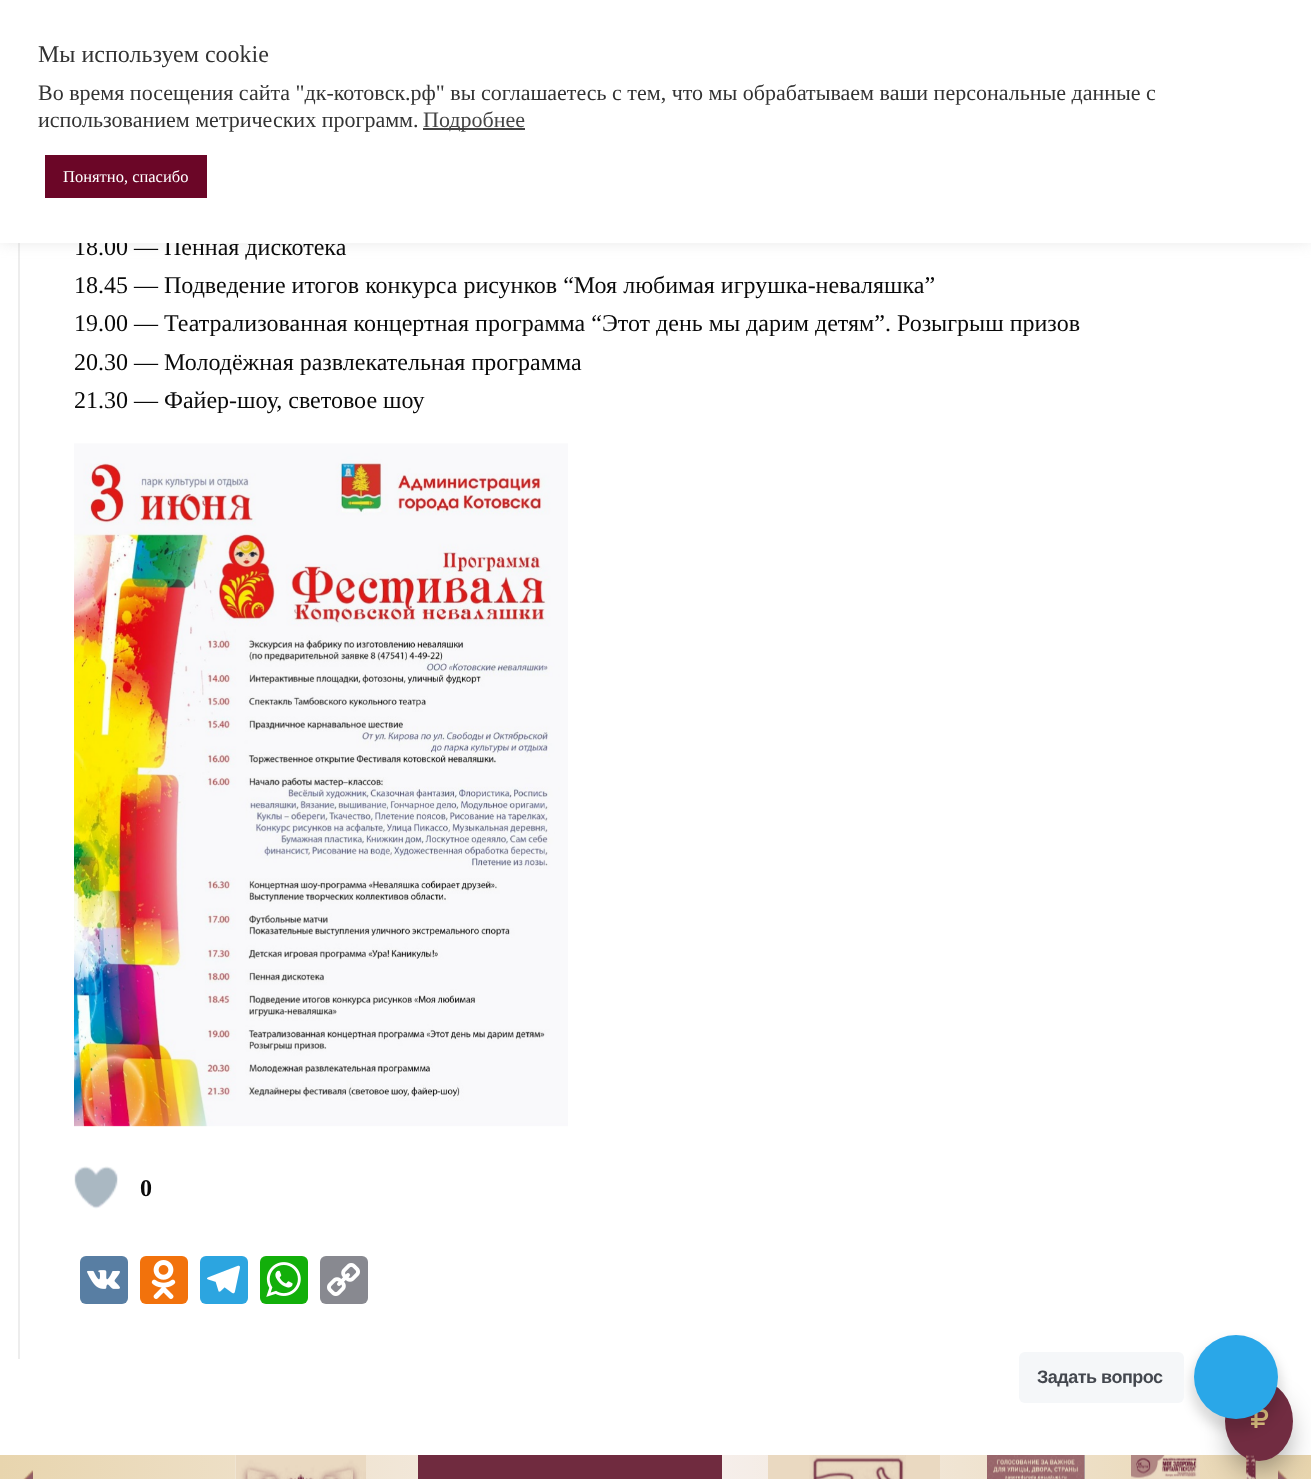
<svg xmlns="http://www.w3.org/2000/svg" width="1311" height="1479">
<defs>
<linearGradient id="g1" gradientUnits="userSpaceOnUse" x1="0" y1="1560" x2="1311" y2="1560"><stop offset="0" stop-color="#e8d5ae"/><stop offset="0.5" stop-color="#f7f1f1"/><stop offset="1" stop-color="#e8d5ae"/></linearGradient>
</defs>
<rect width="100%" height="100%" fill="#fff"/>
<rect x="18" y="243" width="2" height="1116" fill="#ededed"/>
<rect y="-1" width="1311" height="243" fill="#acabab4d" filter="blur(7.5px)"/>
<text x="74" y="255" style="font-family:Liberation Serif;font-size:24px;fill:#0a0a0a">18.00 — Пенная дискотека</text>
<rect width="1311" height="243" fill="#fff"/>
<text x="38" y="62" style="font-family:Liberation Serif;font-size:24px;fill:#333">Мы используем cookie</text>
<text x="38" y="100" style="font-family:Liberation Serif;font-size:22px;fill:#333">Во время посещения сайта "дк-котовск.рф" вы соглашаетесь с тем, что мы обрабатываем ваши персональные данные с</text>
<text x="38" y="127" style="font-family:Liberation Serif;font-size:22px;fill:#333">использованием метрических программ.</text>
<rect x="423" y="128" width="102" height="2" fill="#444"/>
<text x="423" y="127" style="font-family:Liberation Serif;font-size:22px;fill:#444">Подробнее</text>
<rect x="45" y="155" width="162" height="43" fill="#6b0627"/>
<text x="63" y="182" style="font-family:Liberation Serif;font-size:16.5px;fill:#fff">Понятно, спасибо</text>
<text x="74" y="293" style="font-family:Liberation Serif;font-size:24px;fill:#0a0a0a">18.45 — Подведение итогов конкурса рисунков “Моя любимая игрушка-неваляшка”</text>
<text x="74" y="331" style="font-family:Liberation Serif;font-size:24px;fill:#0a0a0a">19.00 — Театрализованная концертная программа “Этот день мы дарим детям”. Розыгрыш призов</text>
<text x="74" y="370" style="font-family:Liberation Serif;font-size:24px;fill:#0a0a0a">20.30 — Молодёжная развлекательная программа</text>
<text x="74" y="408" style="font-family:Liberation Serif;font-size:24px;fill:#0a0a0a">21.30 — Файер-шоу, световое шоу</text>
<image x="74" y="443" width="494" height="684" href="media/1.png"/>
<image x="74" y="1166" width="44" height="43" href="media/2.png"/>
<text x="140" y="1196" style="font-family:Liberation Serif;font-size:24px;font-weight:bold;fill:#0a0a0a">0</text>
<rect x="80" y="1256" width="48" height="48" rx="6" fill="#587ea3"/>
<image x="87" y="1270" width="33" height="19" href="media/3.png"/>
<rect x="140" y="1256" width="48" height="48" rx="6" fill="#f2720c"/>
<image x="151" y="1260" width="25" height="39" href="media/4.png"/>
<rect x="200" y="1256" width="48" height="48" rx="6" fill="#2ca5e0"/>
<image x="207" y="1265" width="33" height="29" href="media/5.png"/>
<rect x="260" y="1256" width="48" height="48" rx="6" fill="#12af0a"/>
<image x="266" y="1262" width="35" height="35" href="media/6.png"/>
<rect x="320" y="1256" width="48" height="48" rx="6" fill="#888990"/>
<image x="327" y="1263" width="33" height="33" href="media/7.png"/>
<rect y="1455" width="1311" height="24" fill="url(#g1)"/>
<rect x="1233" y="1404" width="53" height="65" rx="26.5" fill="#00000066" filter="blur(15px)"/>
<ellipse cx="1259" cy="1421" rx="34" ry="40" fill="#712c41"/>
<image x="1251" y="1409" width="18" height="19" href="media/8.png"/>
<image x="23" y="1470" width="10" height="9" href="media/9.png"/>
<image x="235" y="1455" width="131" height="24" href="media/10.png"/>
<rect x="418" y="1455" width="304" height="24" fill="#702b3f"/>
<image x="768" y="1455" width="172" height="24" href="media/11.png"/>
<image x="987" y="1455" width="98" height="24" href="media/12.png"/>
<image x="1131" y="1455" width="69" height="24" href="media/13.png"/>
<image x="1246" y="1455" width="10" height="24" href="media/14.png"/>
<image x="1278" y="1470" width="10" height="9" href="media/15.png"/>
<rect x="1191" y="1341" width="90" height="90" rx="45" fill="#00000024" filter="blur(6px)"/>
<rect x="1019" y="1352" width="165" height="51" rx="6" fill="#f5f7f9"/>
<text x="1037" y="1383" style="font-family:Liberation Sans;font-size:18px;font-weight:bold;letter-spacing:-0.5px;fill:#43474e">Задать вопрос</text>
<circle cx="1236" cy="1377" r="42" fill="#2aa7e8"/>
</svg>
